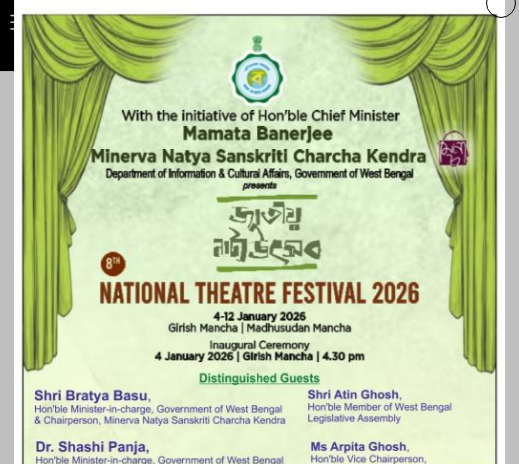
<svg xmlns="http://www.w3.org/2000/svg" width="519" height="464">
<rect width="100%" height="100%" fill="#bfbfbf"/>
<rect y="71" width="15" height="1" fill="#b0b0b0"/>
<rect width="15" height="71" fill="#000"/>
<image x="10" y="14" width="5" height="16" href="media/1.png"/>
<image x="14" y="0" width="492" height="464" href="media/2.png"/>
<circle cx="501" cy="3" r="14.5" fill="none" stroke="#000"/>
</svg>
